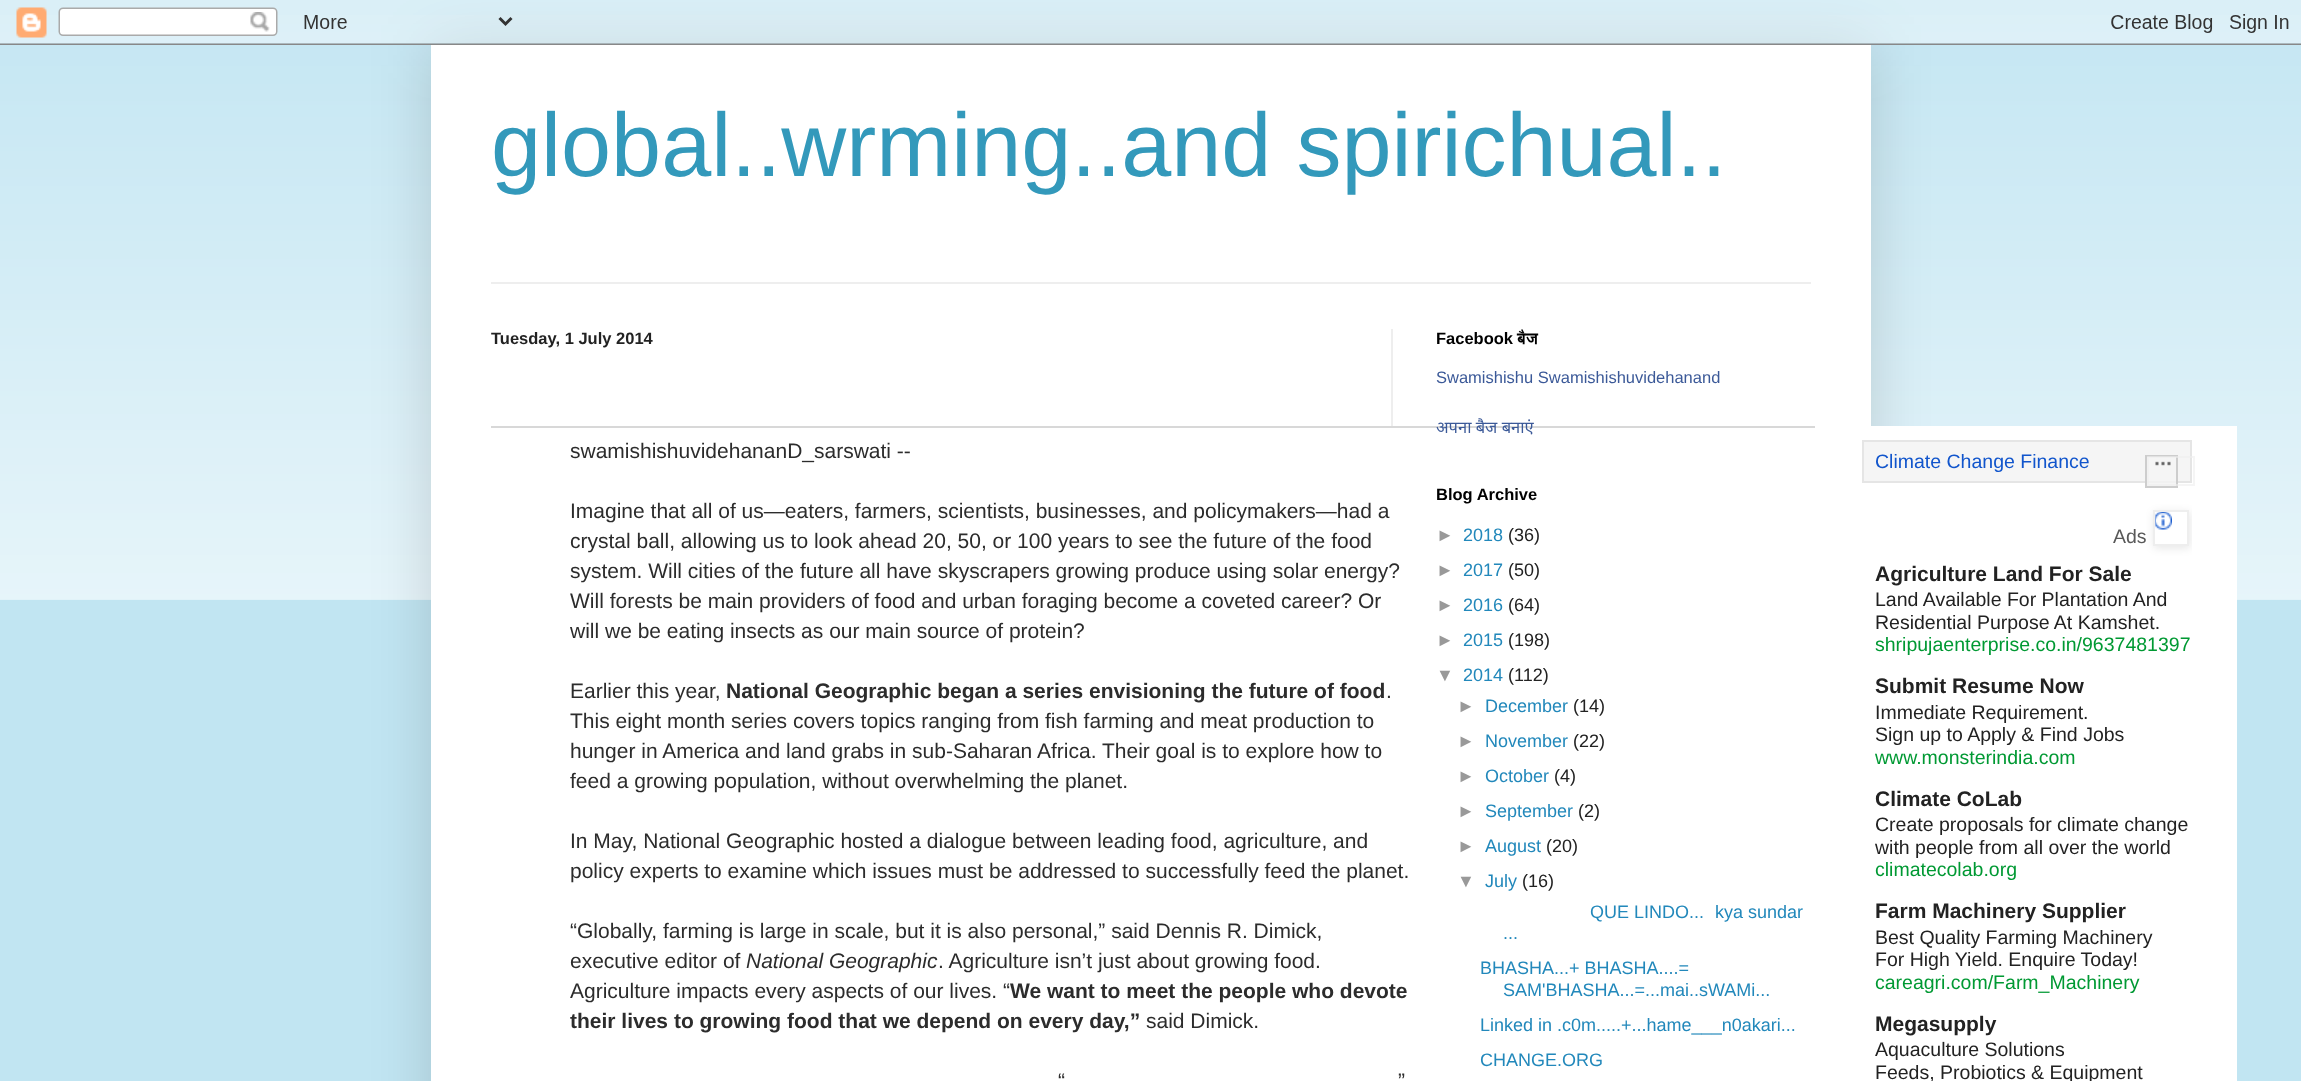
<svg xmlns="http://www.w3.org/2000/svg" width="2301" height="1081">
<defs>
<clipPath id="clip1"><rect x="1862" y="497" width="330" height="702"/></clipPath>
</defs>
<rect width="100%" height="100%" fill="#c1e5f2"/>
<image x="0" y="15" width="2301" height="585" href="media/2.png"/>
<rect x="431" y="45" width="1440" height="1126" fill="#00000026" filter="blur(30px)"/>
<image x="0" y="0" width="2301" height="45" href="media/1.png"/>
<rect x="431" y="45" width="1440" height="1036" fill="#fff"/>
<text x="491" y="176" style="font-family:Liberation Sans;font-size:90px;fill:#39b">global..wrming..and spirichual..</text>
<rect x="491" y="282" width="1320" height="2" fill="#eee"/>
<text x="1436" y="344" style="font-family:Liberation Sans;font-size:16.5px;font-weight:bold;fill:#000">Facebook</text>
<text x="1517" y="344" style="font-family:FreeSans;font-size:16.5px;font-weight:600;fill:#000">बैज</text>
<text x="1436" y="383" style="font-family:Liberation Sans;font-size:16.5px;fill:#3b5998">Swamishishu Swamishishuvidehanand</text>
<rect x="491" y="426" width="1324" height="2" fill="#d8d8d8"/>
<text x="1436" y="433" style="font-family:Noto Sans;font-size:16.5px;fill:#3b5998">अपना बैज बनाएं</text>
<text x="1436" y="500" style="font-family:Liberation Sans;font-size:16.5px;font-weight:bold;fill:#000">Blog Archive</text>
<text x="1436" y="541" style="font-family:Liberation Sans;font-size:18px;fill:#999">►</text>
<text x="1463" y="541" style="font-family:Liberation Sans;font-size:18px;fill:#28b">2018</text>
<text x="1508" y="541" style="font-family:Liberation Sans;font-size:18px;fill:#222">(36)</text>
<text x="1436" y="576" style="font-family:Liberation Sans;font-size:18px;fill:#999">►</text>
<text x="1463" y="576" style="font-family:Liberation Sans;font-size:18px;fill:#28b">2017</text>
<text x="1508" y="576" style="font-family:Liberation Sans;font-size:18px;fill:#222">(50)</text>
<text x="1436" y="611" style="font-family:Liberation Sans;font-size:18px;fill:#999">►</text>
<text x="1463" y="611" style="font-family:Liberation Sans;font-size:18px;fill:#28b">2016</text>
<text x="1508" y="611" style="font-family:Liberation Sans;font-size:18px;fill:#222">(64)</text>
<text x="1436" y="646" style="font-family:Liberation Sans;font-size:18px;fill:#999">►</text>
<text x="1463" y="646" style="font-family:Liberation Sans;font-size:18px;fill:#28b">2015</text>
<text x="1508" y="646" style="font-family:Liberation Sans;font-size:18px;fill:#222">(198)</text>
<text x="1436" y="681" style="font-family:Liberation Sans;font-size:18px;fill:#999">▼</text>
<text x="1463" y="681" style="font-family:Liberation Sans;font-size:18px;fill:#28b">2014</text>
<text x="1508" y="681" style="font-family:Liberation Sans;font-size:18px;fill:#222">(112)</text>
<text x="1457" y="712" style="font-family:Liberation Sans;font-size:18px;fill:#999">►</text>
<text x="1485" y="712" style="font-family:Liberation Sans;font-size:18px;fill:#28b">December</text>
<text x="1573" y="712" style="font-family:Liberation Sans;font-size:18px;fill:#222">(14)</text>
<text x="1457" y="747" style="font-family:Liberation Sans;font-size:18px;fill:#999">►</text>
<text x="1485" y="747" style="font-family:Liberation Sans;font-size:18px;fill:#28b">November</text>
<text x="1573" y="747" style="font-family:Liberation Sans;font-size:18px;fill:#222">(22)</text>
<text x="1457" y="782" style="font-family:Liberation Sans;font-size:18px;fill:#999">►</text>
<text x="1485" y="782" style="font-family:Liberation Sans;font-size:18px;fill:#28b">October</text>
<text x="1554" y="782" style="font-family:Liberation Sans;font-size:18px;fill:#222">(4)</text>
<text x="1457" y="817" style="font-family:Liberation Sans;font-size:18px;fill:#999">►</text>
<text x="1485" y="817" style="font-family:Liberation Sans;font-size:18px;fill:#28b">September</text>
<text x="1578" y="817" style="font-family:Liberation Sans;font-size:18px;fill:#222">(2)</text>
<text x="1457" y="852" style="font-family:Liberation Sans;font-size:18px;fill:#999">►</text>
<text x="1485" y="852" style="font-family:Liberation Sans;font-size:18px;fill:#28b">August</text>
<text x="1546" y="852" style="font-family:Liberation Sans;font-size:18px;fill:#222">(20)</text>
<text x="1457" y="887" style="font-family:Liberation Sans;font-size:18px;fill:#999">▼</text>
<text x="1485" y="887" style="font-family:Liberation Sans;font-size:18px;fill:#28b">July</text>
<text x="1522" y="887" style="font-family:Liberation Sans;font-size:18px;fill:#222">(16)</text>
<text x="1590" y="918" style="font-family:Liberation Sans;font-size:18px;fill:#28b">QUE LINDO...</text>
<text x="1715" y="918" style="font-family:Liberation Sans;font-size:18px;fill:#28b">kya sundar</text>
<text x="1503" y="939" style="font-family:Liberation Sans;font-size:18px;fill:#28b">...</text>
<text x="1480" y="974" style="font-family:Liberation Sans;font-size:18px;fill:#28b">BHASHA...+ BHASHA....=</text>
<text x="1503" y="996" style="font-family:Liberation Sans;font-size:18px;fill:#28b">SAM'BHASHA...=...mai..sWAMi...</text>
<text x="1480" y="1031" style="font-family:Liberation Sans;font-size:18px;fill:#28b">Linked in .c0m.....+...hame___n0akari...</text>
<text x="1480" y="1066" style="font-family:Liberation Sans;font-size:18px;fill:#28b">CHANGE.ORG</text>
<text x="491" y="344" style="font-family:Liberation Sans;font-size:16.5px;font-weight:bold;fill:#222">Tuesday, 1 July 2014</text>
<rect x="1871" y="426" width="366" height="655" fill="#fff"/>
<text x="570" y="458" style="font-family:Liberation Sans;font-size:21px;fill:#2c2c2c">swamishishuvidehananD_sarswati --</text>
<text x="570" y="518" style="font-family:Liberation Sans;font-size:21px;fill:#2c2c2c">Imagine that all of us—eaters, farmers, scientists, businesses, and policymakers—had a</text>
<text x="570" y="548" style="font-family:Liberation Sans;font-size:21px;fill:#2c2c2c">crystal ball, allowing us to look ahead 20, 50, or 100 years to see the future of the food</text>
<text x="570" y="578" style="font-family:Liberation Sans;font-size:21px;fill:#2c2c2c">system. Will cities of the future all have skyscrapers growing produce using solar energy?</text>
<text x="570" y="608" style="font-family:Liberation Sans;font-size:21px;fill:#2c2c2c">Will forests be main providers of food and urban foraging become a coveted career? Or</text>
<text x="570" y="638" style="font-family:Liberation Sans;font-size:21px;fill:#2c2c2c">will we be eating insects as our main source of protein?</text>
<text x="570" y="698" style="font-family:Liberation Sans;font-size:21px;fill:#2c2c2c">Earlier this year,</text>
<text x="726" y="698" style="font-family:Liberation Sans;font-size:21px;font-weight:bold;fill:#2c2c2c">National Geographic began a series envisioning the future of food</text>
<text x="1386" y="698" style="font-family:Liberation Sans;font-size:21px;fill:#2c2c2c">.</text>
<text x="570" y="728" style="font-family:Liberation Sans;font-size:21px;fill:#2c2c2c">This eight month series covers topics ranging from fish farming and meat production to</text>
<text x="570" y="758" style="font-family:Liberation Sans;font-size:21px;fill:#2c2c2c">hunger in America and land grabs in sub-Saharan Africa. Their goal is to explore how to</text>
<text x="570" y="788" style="font-family:Liberation Sans;font-size:21px;fill:#2c2c2c">feed a growing population, without overwhelming the planet.</text>
<text x="570" y="848" style="font-family:Liberation Sans;font-size:21px;fill:#2c2c2c">In May, National Geographic hosted a dialogue between leading food, agriculture, and</text>
<text x="570" y="878" style="font-family:Liberation Sans;font-size:21px;fill:#2c2c2c">policy experts to examine which issues must be addressed to successfully feed the planet.</text>
<text x="570" y="938" style="font-family:Liberation Sans;font-size:21px;fill:#2c2c2c">“Globally, farming is large in scale, but it is also personal,” said Dennis R. Dimick,</text>
<text x="570" y="968" style="font-family:Liberation Sans;font-size:21px;fill:#2c2c2c">executive editor of</text>
<text x="746" y="968" style="font-family:Liberation Sans;font-size:21px;font-style:italic;fill:#2c2c2c">National Geographic</text>
<text x="938" y="968" style="font-family:Liberation Sans;font-size:21px;fill:#2c2c2c">. Agriculture isn’t just about growing food.</text>
<text x="570" y="998" style="font-family:Liberation Sans;font-size:21px;fill:#2c2c2c">Agriculture impacts every aspects of our lives. “</text>
<text x="1010" y="998" style="font-family:Liberation Sans;font-size:21px;font-weight:bold;fill:#2c2c2c">We want to meet the people who devote</text>
<text x="570" y="1028" style="font-family:Liberation Sans;font-size:21px;font-weight:bold;fill:#2c2c2c">their lives to growing food that we depend on every day,”</text>
<text x="1146" y="1028" style="font-family:Liberation Sans;font-size:21px;fill:#2c2c2c">said Dimick.</text>
<text x="1058" y="1088" style="font-family:Liberation Sans;font-size:21px;fill:#2c2c2c">“</text>
<text x="1398" y="1088" style="font-family:Liberation Sans;font-size:21px;fill:#2c2c2c">”</text>
<g clip-path="url(#clip1)">
<rect x="2154" y="512" width="36" height="36" fill="#0000001a" filter="blur(4px)"/>
</g>
<rect x="2155" y="512" width="32" height="32" fill="#fff"/>
<image x="2155" y="512" width="17" height="18" href="media/3.png"/>
<rect x="2154" y="511" width="34" height="34" fill="none" stroke="#eee" stroke-width="2"/>
<text x="2113" y="543" style="font-family:Liberation Sans;font-size:19.5px;fill:#595959">Ads</text>
<text x="1875" y="581" style="font-family:Liberation Sans;font-size:21px;font-weight:bold;fill:#222">Agriculture Land For Sale</text>
<text x="1875" y="606" style="font-family:Liberation Sans;font-size:19.5px;fill:#222">Land Available For Plantation And</text>
<text x="1875" y="629" style="font-family:Liberation Sans;font-size:19.5px;fill:#222">Residential Purpose At Kamshet.</text>
<text x="1875" y="651" style="font-family:Liberation Sans;font-size:19.5px;fill:#093">shripujaenterprise.co.in/9637481397</text>
<text x="1875" y="693" style="font-family:Liberation Sans;font-size:21px;font-weight:bold;fill:#222">Submit Resume Now</text>
<text x="1875" y="719" style="font-family:Liberation Sans;font-size:19.5px;fill:#222">Immediate Requirement.</text>
<text x="1875" y="741" style="font-family:Liberation Sans;font-size:19.5px;fill:#222">Sign up to Apply &amp; Find Jobs</text>
<text x="1875" y="764" style="font-family:Liberation Sans;font-size:19.5px;fill:#093">www.monsterindia.com</text>
<text x="1875" y="806" style="font-family:Liberation Sans;font-size:21px;font-weight:bold;fill:#222">Climate CoLab</text>
<text x="1875" y="831" style="font-family:Liberation Sans;font-size:19.5px;fill:#222">Create proposals for climate change</text>
<text x="1875" y="854" style="font-family:Liberation Sans;font-size:19.5px;fill:#222">with people from all over the world</text>
<text x="1875" y="876" style="font-family:Liberation Sans;font-size:19.5px;fill:#093">climatecolab.org</text>
<text x="1875" y="918" style="font-family:Liberation Sans;font-size:21px;font-weight:bold;fill:#222">Farm Machinery Supplier</text>
<text x="1875" y="944" style="font-family:Liberation Sans;font-size:19.5px;fill:#222">Best Quality Farming Machinery</text>
<text x="1875" y="966" style="font-family:Liberation Sans;font-size:19.5px;fill:#222">For High Yield. Enquire Today!</text>
<text x="1875" y="989" style="font-family:Liberation Sans;font-size:19.5px;fill:#093">careagri.com/Farm_Machinery</text>
<text x="1875" y="1031" style="font-family:Liberation Sans;font-size:21px;font-weight:bold;fill:#222">Megasupply</text>
<text x="1875" y="1056" style="font-family:Liberation Sans;font-size:19.5px;fill:#222">Aquaculture Solutions</text>
<text x="1875" y="1079" style="font-family:Liberation Sans;font-size:19.5px;fill:#222">Feeds, Probiotics &amp; Equipment</text>
<rect x="1863" y="441" width="328" height="41" fill="#f5f5f5" stroke="#e5e5e5" stroke-width="2"/>
<text x="1875" y="468" style="font-family:Liberation Sans;font-size:19.5px;fill:#15c">Climate Change Finance</text>
<rect x="2147" y="481" width="29" height="5" fill="#f3f3f3d9"/>
<rect x="2146" y="456" width="31" height="31" fill="none" stroke="#cdcdcd" stroke-width="2"/>
<image x="2155" y="461" width="16" height="5" href="media/4.png"/>
<rect x="2148" y="457" width="46" height="28" fill="none" stroke="#eeeeee99" stroke-width="2"/>
<rect x="1391" y="329" width="2" height="97" fill="#eee"/>
</svg>
